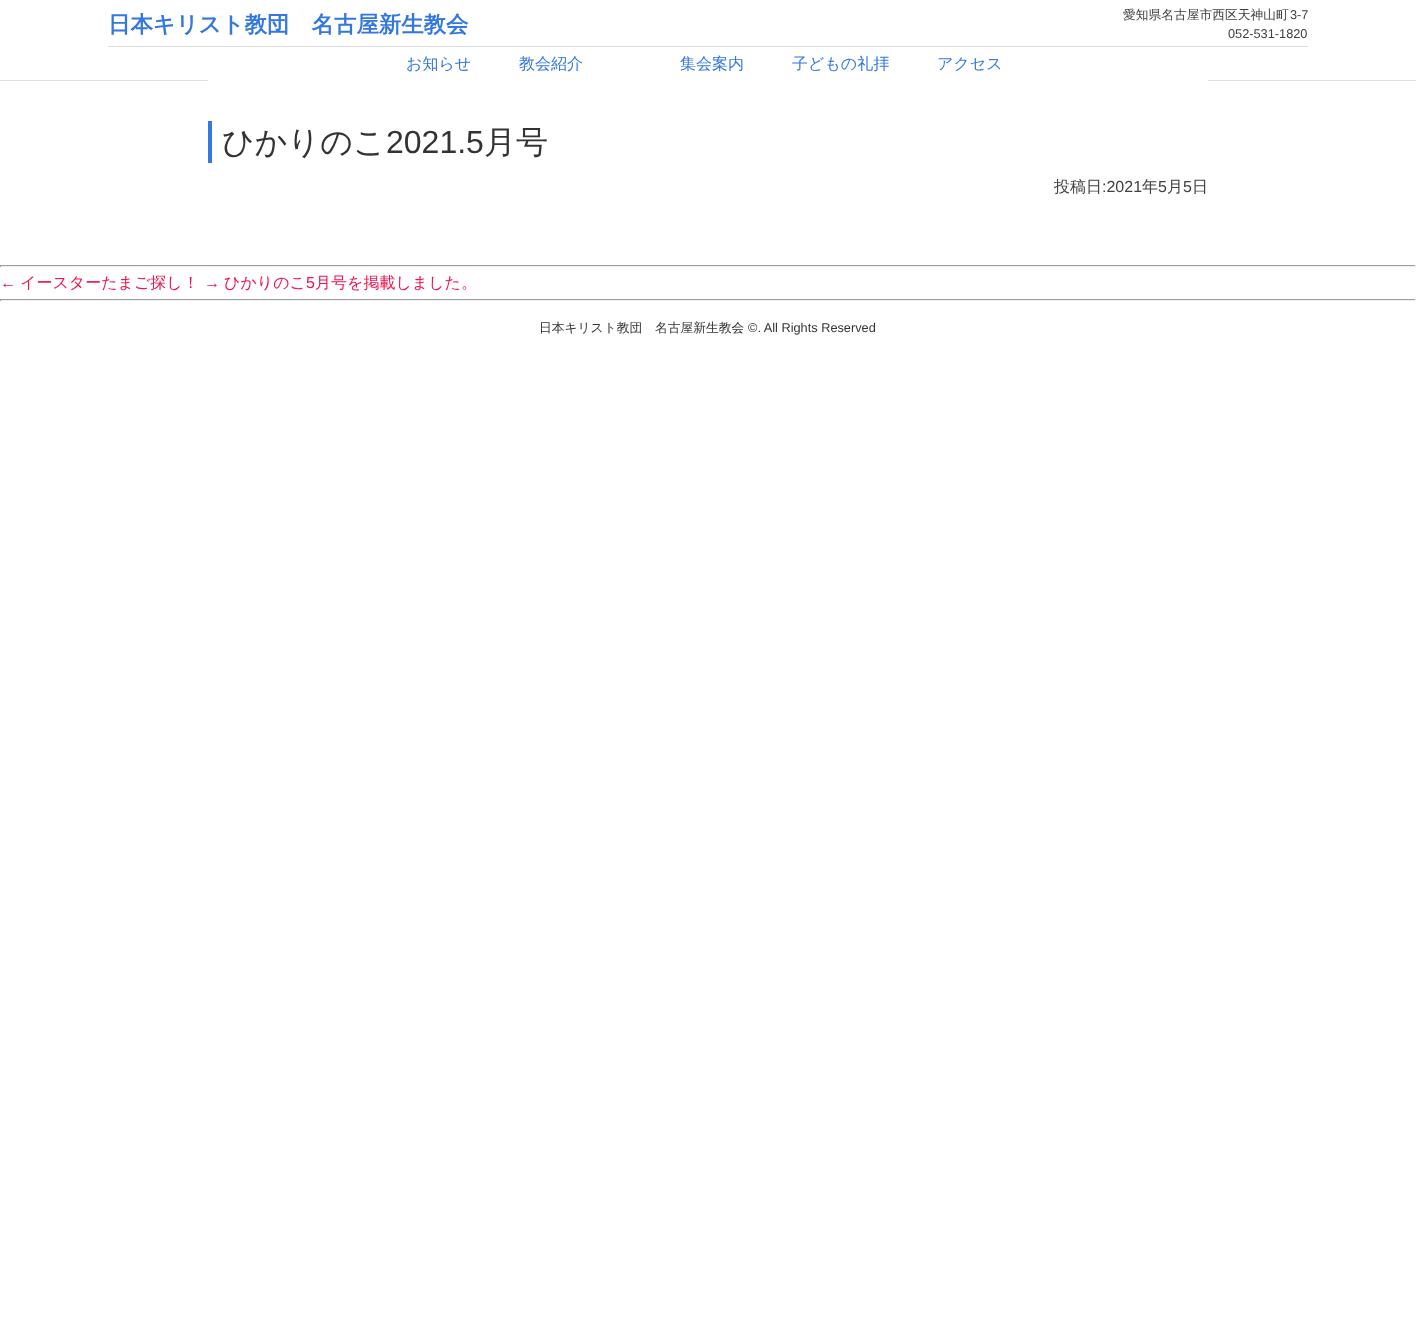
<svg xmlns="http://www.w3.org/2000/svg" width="1416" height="1322">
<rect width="100%" height="100%" fill="#fff"/>
<rect y="80" width="1416" height="1" fill="#dfdfdf"/>
<rect x="208" y="80" width="1000" height="1" fill="#fdfdfd"/>
<text x="108" y="32" style="font-family:WenQuanYi Zen Hei;font-size:22.4px;font-weight:bold;fill:#3378df">日本キリスト教団　名古屋新生教会</text>
<text x="1123" y="19" style="font-family:WenQuanYi Zen Hei;font-size:12.75px;font-weight:500;fill:#414141">愛知県名古屋市西区天神山町</text>
<text x="1290" y="19" style="font-family:Liberation Sans;font-size:12.75px;fill:#414141">3-7</text>
<text x="1228" y="38" style="font-family:Liberation Sans;font-size:12.75px;fill:#414141">052-531-1820</text>
<rect x="108" y="46" width="1200" height="1" fill="#dfdfdf"/>
<text x="406" y="69" style="font-family:WenQuanYi Zen Hei;font-size:16px;font-weight:500;fill:#3378df">お知らせ</text>
<text x="519" y="69" style="font-family:WenQuanYi Zen Hei;font-size:16px;font-weight:500;fill:#3378df">教会紹介</text>
<text x="680" y="69" style="font-family:WenQuanYi Zen Hei;font-size:16px;font-weight:500;fill:#3378df">集会案内</text>
<text x="792" y="69" style="font-family:WenQuanYi Zen Hei;font-size:16px;font-weight:500;fill:#3378df">子どもの礼拝</text>
<text x="937" y="69" style="font-family:WenQuanYi Zen Hei;font-size:16px;font-weight:500;fill:#3378df">アクセス</text>
<rect x="208" y="121" width="4" height="42" fill="#3378df"/>
<text x="222" y="153" style="font-family:WenQuanYi Zen Hei;font-size:32px;font-weight:500;fill:#333">ひかりのこ</text>
<text x="386" y="153" style="font-family:Liberation Sans;font-size:32px;fill:#333">2021.5</text>
<text x="484" y="153" style="font-family:WenQuanYi Zen Hei;font-size:32px;font-weight:500;fill:#333">月号</text>
<text x="1054" y="192" style="font-family:WenQuanYi Zen Hei;font-size:16px;font-weight:500;fill:#414141">投稿日</text>
<text x="1102" y="192" style="font-family:Liberation Sans;font-size:16px;fill:#414141">:2021</text>
<text x="1142" y="192" style="font-family:WenQuanYi Zen Hei;font-size:16px;font-weight:500;fill:#414141">年</text>
<text x="1158" y="192" style="font-family:Liberation Sans;font-size:16px;fill:#414141">5</text>
<text x="1167" y="192" style="font-family:WenQuanYi Zen Hei;font-size:16px;font-weight:500;fill:#414141">月</text>
<text x="1183" y="192" style="font-family:Liberation Sans;font-size:16px;fill:#414141">5</text>
<text x="1192" y="192" style="font-family:WenQuanYi Zen Hei;font-size:16px;font-weight:500;fill:#414141">日</text>
<rect y="265" width="1416" height="1" fill="#9f9f9f"/>
<rect x="1415" y="265" width="1" height="2" fill="#eee"/>
<rect y="266" width="1416" height="1" fill="#eee"/>
<rect y="265" width="1" height="2" fill="#9f9f9f"/>
<text x="0" y="288" style="font-family:Liberation Sans;font-size:16px;fill:#f0134d">←</text>
<text x="20" y="288" style="font-family:WenQuanYi Zen Hei;font-size:16px;font-weight:500;fill:#f0134d">イースターたまご探し！</text>
<text x="204" y="288" style="font-family:Liberation Sans;font-size:16px;fill:#f0134d">→</text>
<text x="224" y="288" style="font-family:WenQuanYi Zen Hei;font-size:16px;font-weight:500;fill:#f0134d">ひかりのこ</text>
<text x="306" y="288" style="font-family:Liberation Sans;font-size:16px;fill:#f0134d">5</text>
<text x="315" y="288" style="font-family:WenQuanYi Zen Hei;font-size:16px;font-weight:500;fill:#f0134d">月号を掲載しました。</text>
<rect y="299" width="1416" height="1" fill="#9f9f9f"/>
<rect x="1415" y="299" width="1" height="2" fill="#eee"/>
<rect y="300" width="1416" height="1" fill="#eee"/>
<rect y="299" width="1" height="2" fill="#9f9f9f"/>
<text x="539" y="332" style="font-family:WenQuanYi Zen Hei;font-size:12.75px;font-weight:500;fill:#333">日本キリスト教団　名古屋新生教会</text>
<text x="748" y="332" style="font-family:Liberation Sans;font-size:12.75px;fill:#333">©. All Rights Reserved</text>
</svg>
